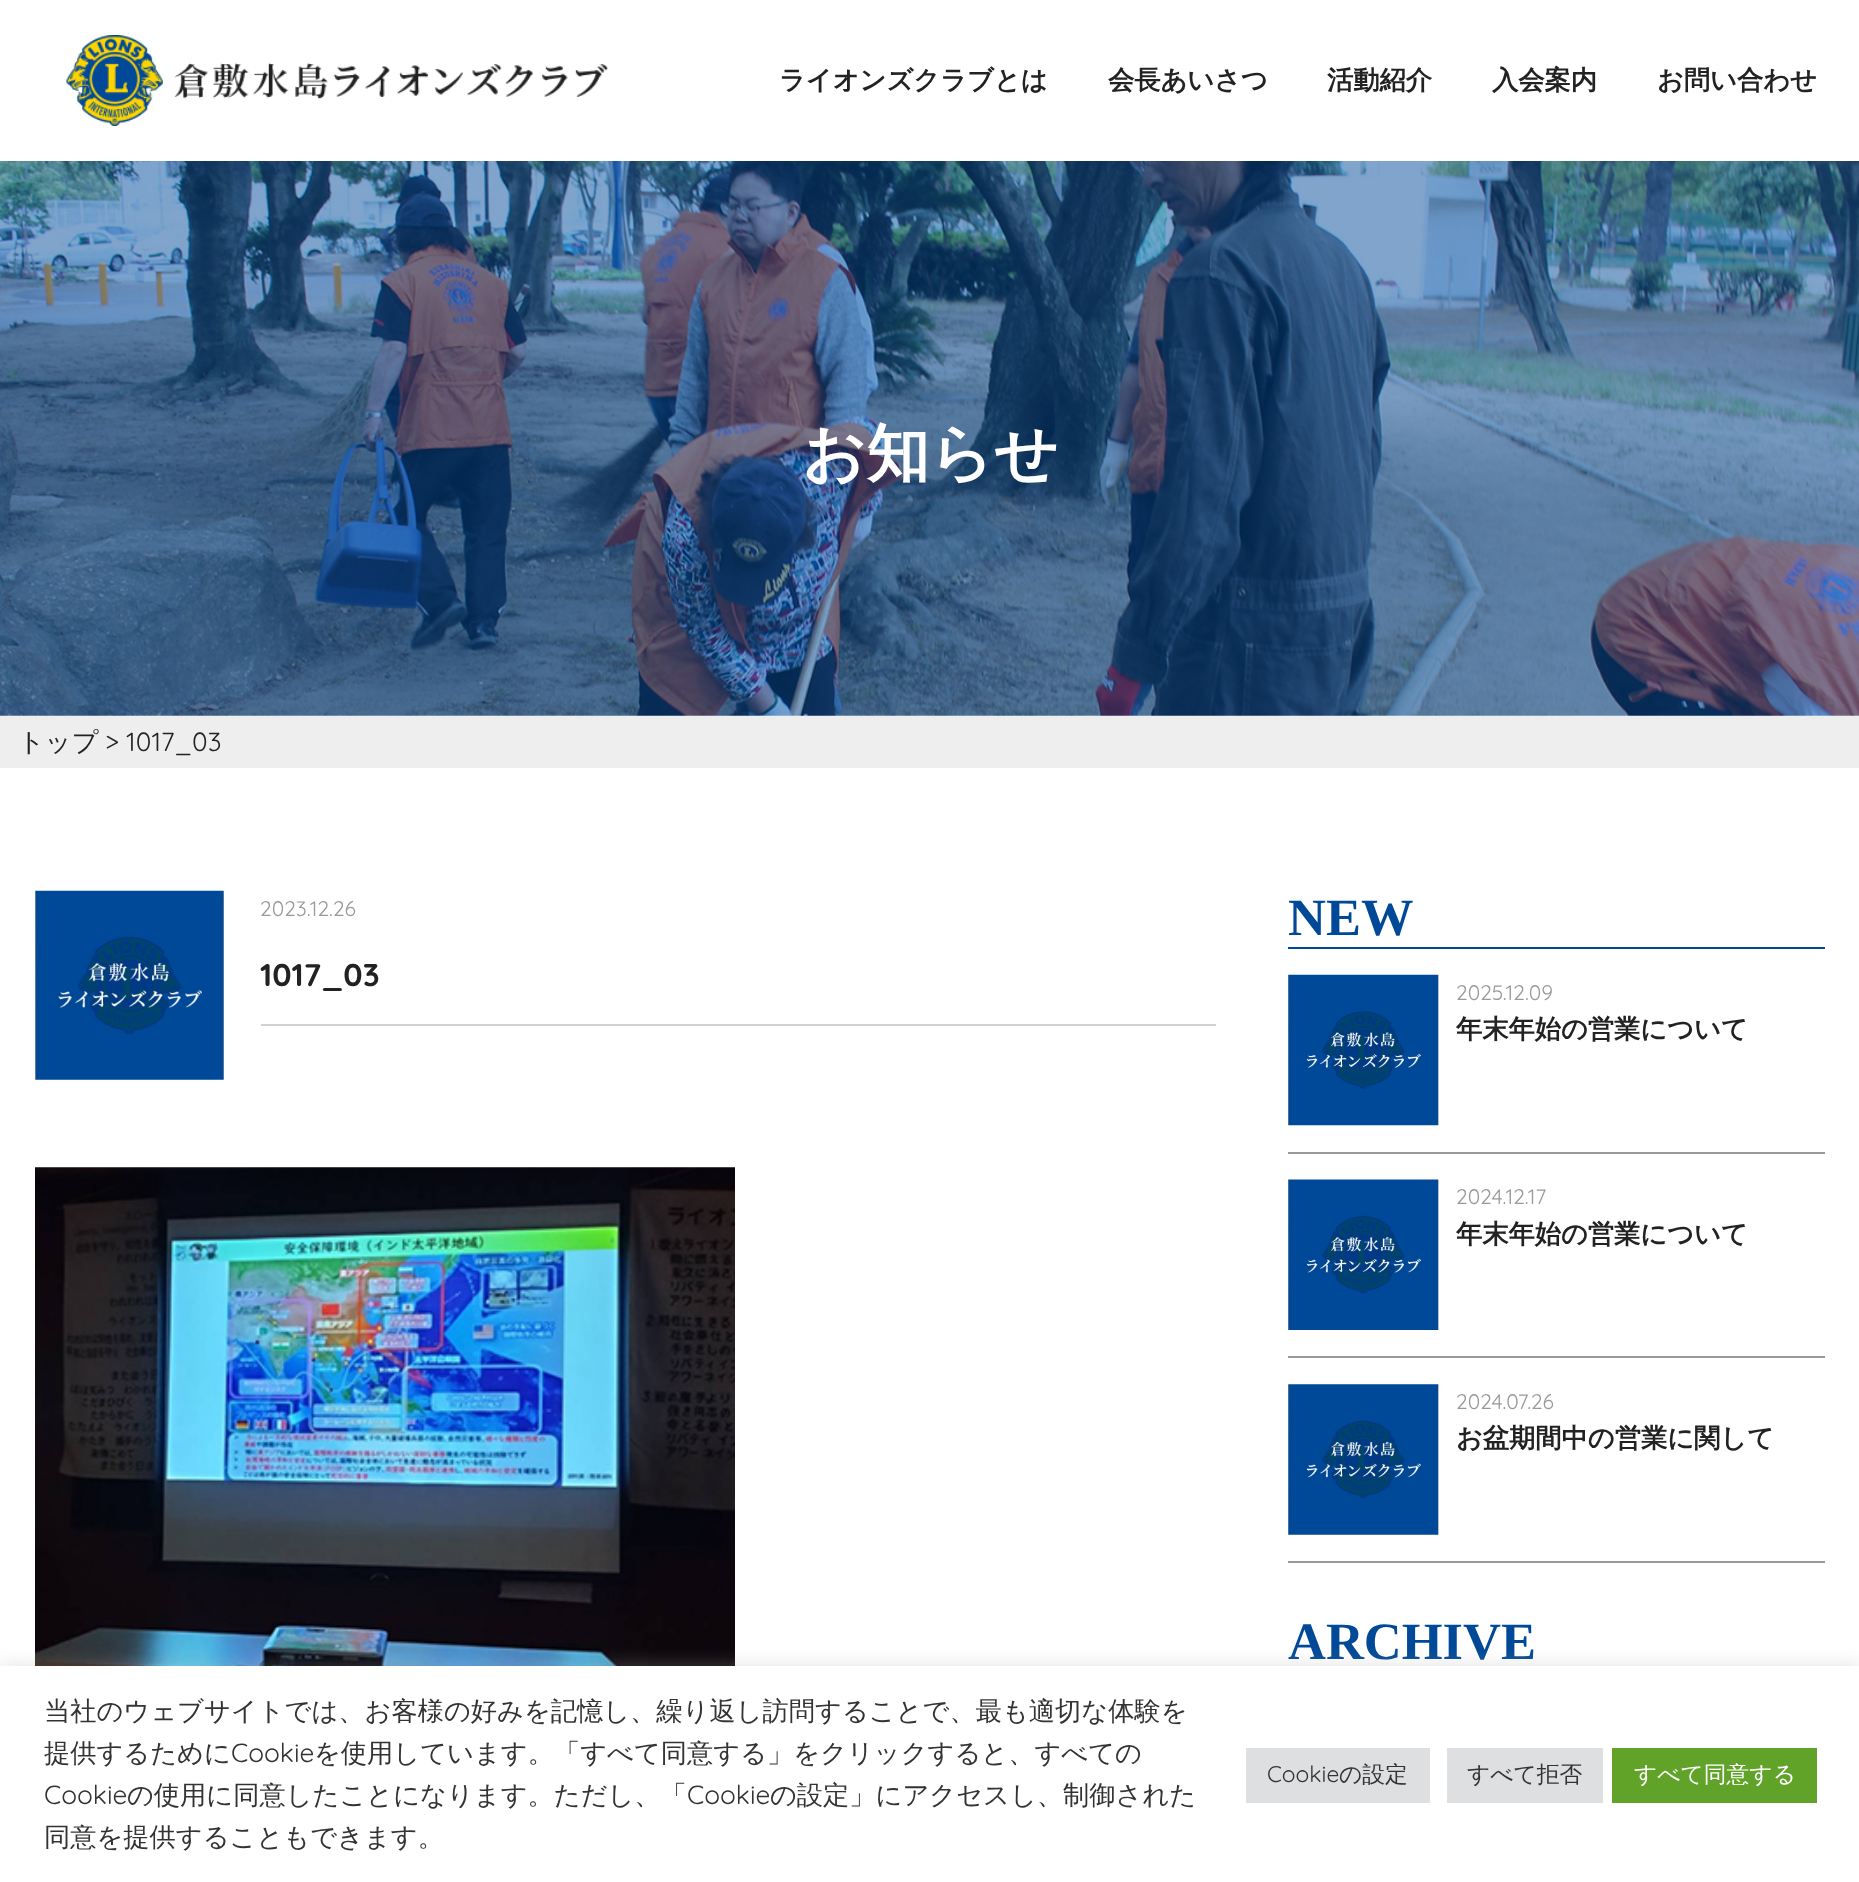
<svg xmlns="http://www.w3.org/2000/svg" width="1859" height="1882">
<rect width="100%" height="100%" fill="#fff"/>
<image x="66" y="35" width="542" height="91" href="media/1.png"/>
<text x="779" y="89" style="font-family:WenQuanYi Zen Hei;font-size:26.25px;font-weight:bold;fill:#222">ライオンズクラブとは</text>
<text x="1108" y="89" style="font-family:WenQuanYi Zen Hei;font-size:26.25px;font-weight:bold;fill:#222">会長あいさつ</text>
<text x="1327" y="89" style="font-family:WenQuanYi Zen Hei;font-size:26.25px;font-weight:bold;fill:#222">活動紹介</text>
<text x="1492" y="89" style="font-family:WenQuanYi Zen Hei;font-size:26.25px;font-weight:bold;fill:#222">入会案内</text>
<text x="1657" y="89" style="font-family:WenQuanYi Zen Hei;font-size:26.25px;font-weight:bold;fill:#222">お問い合わせ</text>
<image x="0" y="161" width="1859" height="555" href="media/2.png"/>
<text x="802" y="475" style="font-family:WenQuanYi Zen Hei;font-size:63px;font-weight:bold;fill:#fff">お知らせ</text>
<rect y="716" width="1859" height="52" fill="#eee"/>
<text x="18" y="751" style="font-family:WenQuanYi Zen Hei;font-size:26.25px;font-weight:500;fill:#222">トップ</text>
<text x="105" y="751" style="font-family:Quicksand;font-size:26.25px;fill:#222">&gt; 1017_03</text>
<image x="35" y="890" width="189" height="190" href="media/3.png"/>
<rect x="261" y="1024" width="955" height="2" fill="#d2d2d2"/>
<text x="260" y="916" style="font-family:Quicksand;font-size:21px;fill:#999">2023.12.26</text>
<text x="260" y="986" style="font-family:Quicksand;font-size:31.5px;font-weight:bold;fill:#222">1017_03</text>
<image x="35" y="1167" width="700" height="499" href="media/4.png"/>
<rect x="1288" y="947" width="537" height="2" fill="#004998"/>
<text x="1288" y="935" style="font-family:Liberation Serif;font-size:52.5px;font-weight:bold;fill:#004998">NEW</text>
<rect x="1288" y="1152" width="537" height="2" fill="#999"/>
<image x="1288" y="974" width="151" height="152" href="media/5.png"/>
<text x="1456" y="1000" style="font-family:Quicksand;font-size:21px;fill:#999">2025.12.09</text>
<text x="1456" y="1038" style="font-family:WenQuanYi Zen Hei;font-size:26.25px;font-weight:bold;fill:#222">年末年始の営業について</text>
<rect x="1288" y="1356" width="537" height="2" fill="#999"/>
<image x="1288" y="1179" width="151" height="151" href="media/6.png"/>
<text x="1456" y="1204" style="font-family:Quicksand;font-size:21px;fill:#999">2024.12.17</text>
<text x="1456" y="1243" style="font-family:WenQuanYi Zen Hei;font-size:26.25px;font-weight:bold;fill:#222">年末年始の営業について</text>
<rect x="1288" y="1561" width="537" height="2" fill="#999"/>
<image x="1288" y="1384" width="151" height="151" href="media/7.png"/>
<text x="1456" y="1409" style="font-family:Quicksand;font-size:21px;fill:#999">2024.07.26</text>
<text x="1456" y="1447" style="font-family:WenQuanYi Zen Hei;font-size:26.25px;font-weight:bold;fill:#222">お盆期間中の営業に関して</text>
<text x="1288" y="1659" style="font-family:Liberation Serif;font-size:52.5px;font-weight:bold;fill:#004998">ARCHIVE</text>
<rect y="1664" width="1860" height="217" fill="#acabab4d" filter="blur(9px)"/>
<rect y="1666" width="1859" height="216" fill="#fff"/>
<text x="44" y="1720" style="font-family:WenQuanYi Zen Hei;font-size:26.25px;font-weight:500;fill:#333">当社のウェブサイトでは、お客様の好みを記憶し、繰り返し訪問することで、最も適切な体験を</text>
<text x="44" y="1762" style="font-family:WenQuanYi Zen Hei;font-size:26.25px;font-weight:500;fill:#333">提供するために</text>
<text x="231" y="1762" style="font-family:Quicksand;font-size:26.25px;fill:#333">Cookie</text>
<text x="314" y="1762" style="font-family:WenQuanYi Zen Hei;font-size:26.25px;font-weight:500;fill:#333">を使用しています。「すべて同意する」をクリックすると、すべての</text>
<text x="44" y="1804" style="font-family:Quicksand;font-size:26.25px;fill:#333">Cookie</text>
<text x="127" y="1804" style="font-family:WenQuanYi Zen Hei;font-size:26.25px;font-weight:500;fill:#333">の使用に同意したことになります。ただし、「</text>
<text x="687" y="1804" style="font-family:Quicksand;font-size:26.25px;fill:#333">Cookie</text>
<text x="770" y="1804" style="font-family:WenQuanYi Zen Hei;font-size:26.25px;font-weight:500;fill:#333">の設定」にアクセスし、制御された</text>
<text x="44" y="1846" style="font-family:WenQuanYi Zen Hei;font-size:26.25px;font-weight:500;fill:#333">同意を提供することもできます。</text>
<rect x="1246" y="1748" width="184" height="55" fill="#dedfe0"/>
<text x="1267" y="1782" style="font-family:Quicksand;font-size:22.75px;fill:#333">Cookie</text>
<text x="1339" y="1782" style="font-family:WenQuanYi Zen Hei;font-size:22.75px;font-weight:500;fill:#333">の設定</text>
<rect x="1447" y="1748" width="156" height="55" fill="#dedfe0"/>
<text x="1467" y="1782" style="font-family:WenQuanYi Zen Hei;font-size:22.75px;font-weight:500;fill:#333">すべて拒否</text>
<rect x="1612" y="1748" width="205" height="55" fill="#61a229"/>
<text x="1634" y="1782" style="font-family:WenQuanYi Zen Hei;font-size:22.75px;font-weight:500;fill:#fff">すべて同意する</text>
</svg>
